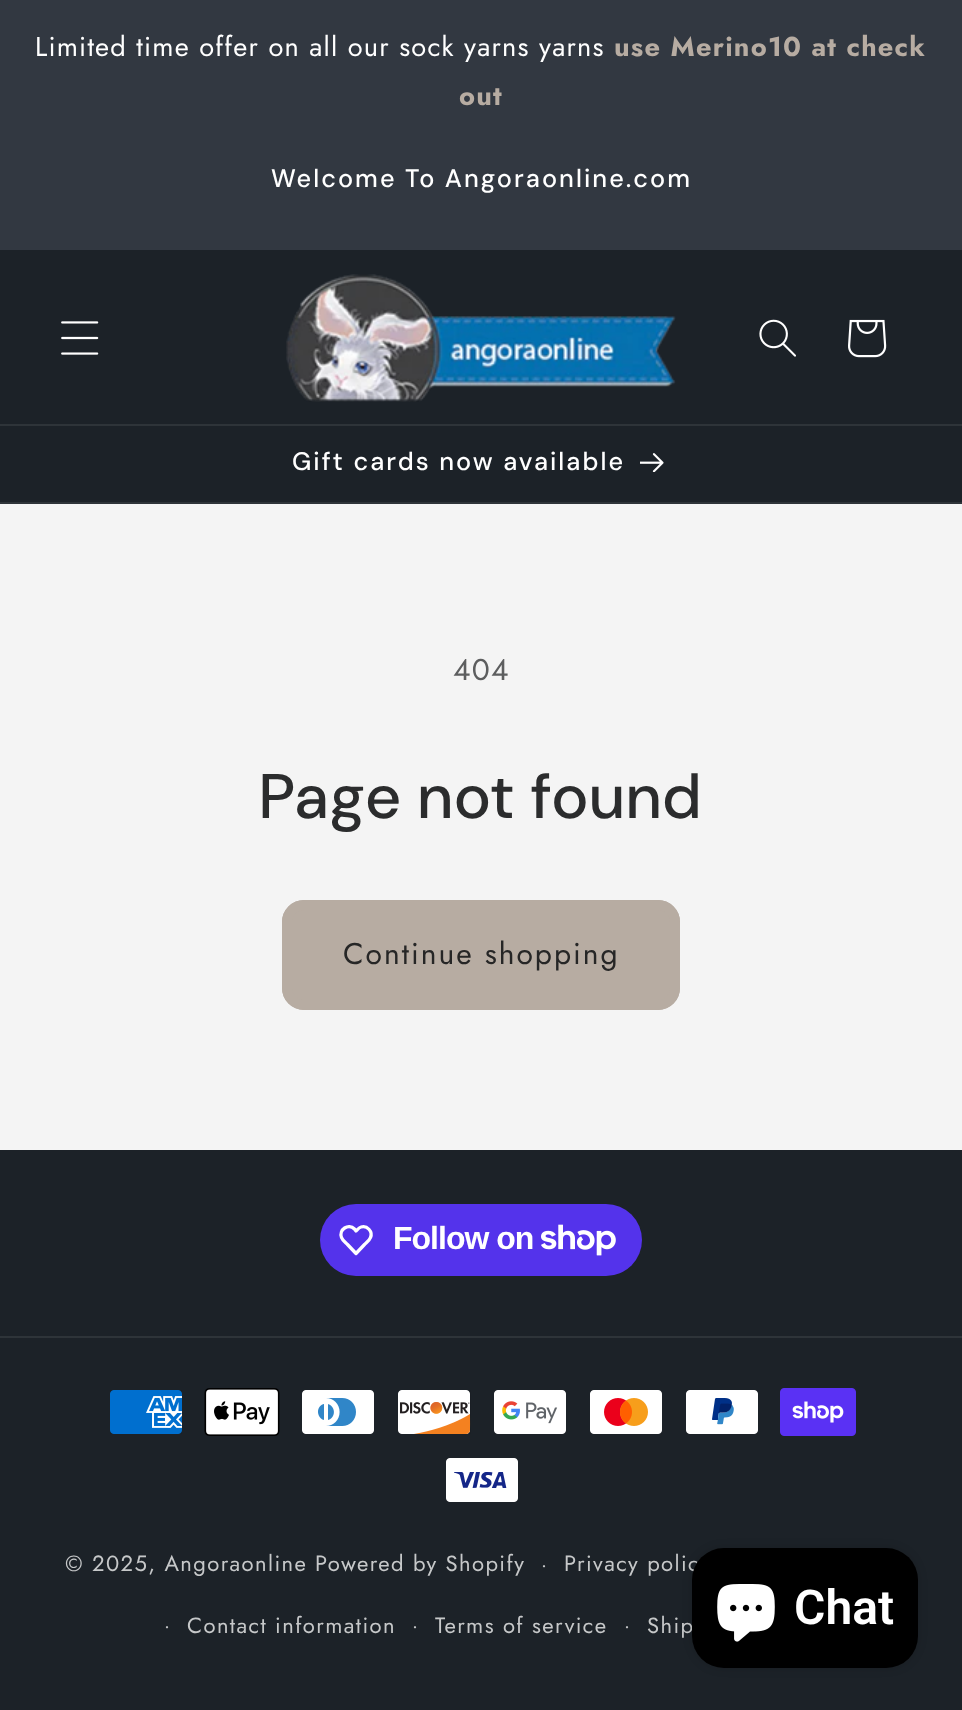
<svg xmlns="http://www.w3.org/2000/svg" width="962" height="1710">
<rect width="100%" height="100%" fill="#f4f4f4"/>
<rect width="962" height="250" fill="#323841"/>
<text x="35" y="56" style="font-family:Jost;font-size:27.2px;letter-spacing:1.2px;fill:#fff">Limited time offer on all our sock yarns yarns</text>
<text x="614" y="56" style="font-family:Jost;font-size:27.2px;font-weight:bold;letter-spacing:1.2px;fill:#b7aca2">use Merino10 at check</text>
<text x="459" y="105" style="font-family:Jost;font-size:27.2px;font-weight:bold;letter-spacing:1.2px;fill:#b7aca2">out</text>
<text x="271" y="187" style="font-family:DM Sans;font-size:25.25px;font-weight:500;letter-spacing:2px;fill:#fff">Welcome To Angoraonline.com</text>
<rect y="250" width="962" height="174" fill="#1c2228"/>
<rect y="424" width="962" height="2" fill="#2e3439"/>
<image x="61" y="321" width="38" height="34" href="media/1.png"/>
<image x="286" y="274" width="390" height="128" href="media/2.png"/>
<image x="759" y="319" width="37" height="38" href="media/3.png"/>
<image x="848" y="319" width="39" height="39" href="media/4.png"/>
<rect y="426" width="962" height="76" fill="#1c2228"/>
<rect y="502" width="962" height="2" fill="#2e3439"/>
<text x="292" y="470" style="font-family:DM Sans;font-size:25.25px;font-weight:500;letter-spacing:2px;fill:#fff">Gift cards now available</text>
<image x="640" y="453" width="24" height="19" href="media/5.png"/>
<text x="453" y="680" style="font-family:Jost;font-size:30px;letter-spacing:1.2px;fill:#5d5e5f">404</text>
<text x="259" y="818" style="font-family:'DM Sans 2';font-size:63px;font-weight:500;letter-spacing:1.25px;fill:#2b2c2d">Page not found</text>
<rect x="282" y="900" width="398" height="110" rx="22" fill="#b7aca2"/>
<rect x="287" y="905" width="388" height="100" rx="17" fill="none" stroke="#b7aca2" stroke-width="10"/>
<text x="343" y="964" style="font-family:Jost;font-size:30px;letter-spacing:2px;fill:#262626">Continue shopping</text>
<rect y="1150" width="962" height="560" fill="#1c2228"/>
<rect x="320" y="1204" width="322" height="72" rx="36" fill="#5433eb"/>
<path d="M354.5 1229l1.5 2c1.5-1.5 3-3.5 5-4c6-2 12 4.5 9.5 10.5c-1 3-4 5-6 7l-8.5 9l-8.5-9c-2-2-5-4-6-7c-3-8 7-14.5 13-8.5z" fill="none" stroke="#fff" stroke-width="3.3" stroke-linejoin="round"/>
<text x="393" y="1249" style="font-family:Liberation Sans;font-size:32px;font-weight:bold;letter-spacing:-1px;fill:#fff">Follow on</text>
<image x="541" y="1224" width="75" height="32" href="media/6.png"/>
<rect y="1336" width="962" height="2" fill="#2e3439"/>
<image x="110" y="1390" width="72" height="44" href="media/7.png"/>
<image x="204" y="1388" width="76" height="48" href="media/8.png"/>
<image x="302" y="1390" width="72" height="44" href="media/9.png"/>
<image x="398" y="1390" width="73" height="44" href="media/10.png"/>
<image x="494" y="1390" width="72" height="44" href="media/11.png"/>
<image x="590" y="1390" width="72" height="44" href="media/12.png"/>
<image x="686" y="1390" width="72" height="44" href="media/13.png"/>
<image x="780" y="1388" width="76" height="48" href="media/14.png"/>
<image x="446" y="1458" width="72" height="44" href="media/15.png"/>
<text x="65" y="1571" style="font-family:Jost;font-size:22px;letter-spacing:1.4px;fill:#c6c8c9">© 2025, Angoraonline</text>
<text x="541" y="1571" style="font-family:Jost;font-size:20px;letter-spacing:1.4px;fill:#c6c8c9">·</text>
<text x="564" y="1571" style="font-family:Jost;font-size:22px;letter-spacing:1.4px;fill:#c6c8c9">Privacy polic</text>
<text x="164" y="1632" style="font-family:Jost;font-size:20px;letter-spacing:1.4px;fill:#c6c8c9">·</text>
<text x="187" y="1633" style="font-family:Jost;font-size:22px;letter-spacing:1.4px;fill:#c6c8c9">Contact information</text>
<text x="412" y="1632" style="font-family:Jost;font-size:20px;letter-spacing:1.4px;fill:#c6c8c9">·</text>
<text x="435" y="1633" style="font-family:Jost;font-size:22px;letter-spacing:1.4px;fill:#c6c8c9">Terms of service</text>
<text x="624" y="1632" style="font-family:Jost;font-size:20px;letter-spacing:1.4px;fill:#c6c8c9">·</text>
<text x="647" y="1633" style="font-family:Jost;font-size:22px;letter-spacing:1.4px;fill:#c6c8c9">Ship</text>
<text x="315" y="1571" style="font-family:Jost;font-size:22px;letter-spacing:1.4px;fill:#c6c8c9">Powered by Shopify</text>
<rect x="692" y="1548" width="226" height="120" rx="32" fill="#00000026" filter="blur(5px)"/>
<rect x="692" y="1548" width="226" height="120" rx="32" fill="#000"/>
<image x="717" y="1584" width="58" height="58" href="media/16.png"/>
<text x="794" y="1624" style="font-family:Roboto;font-size:48px;font-weight:600;fill:#fff">Chat</text>
</svg>
